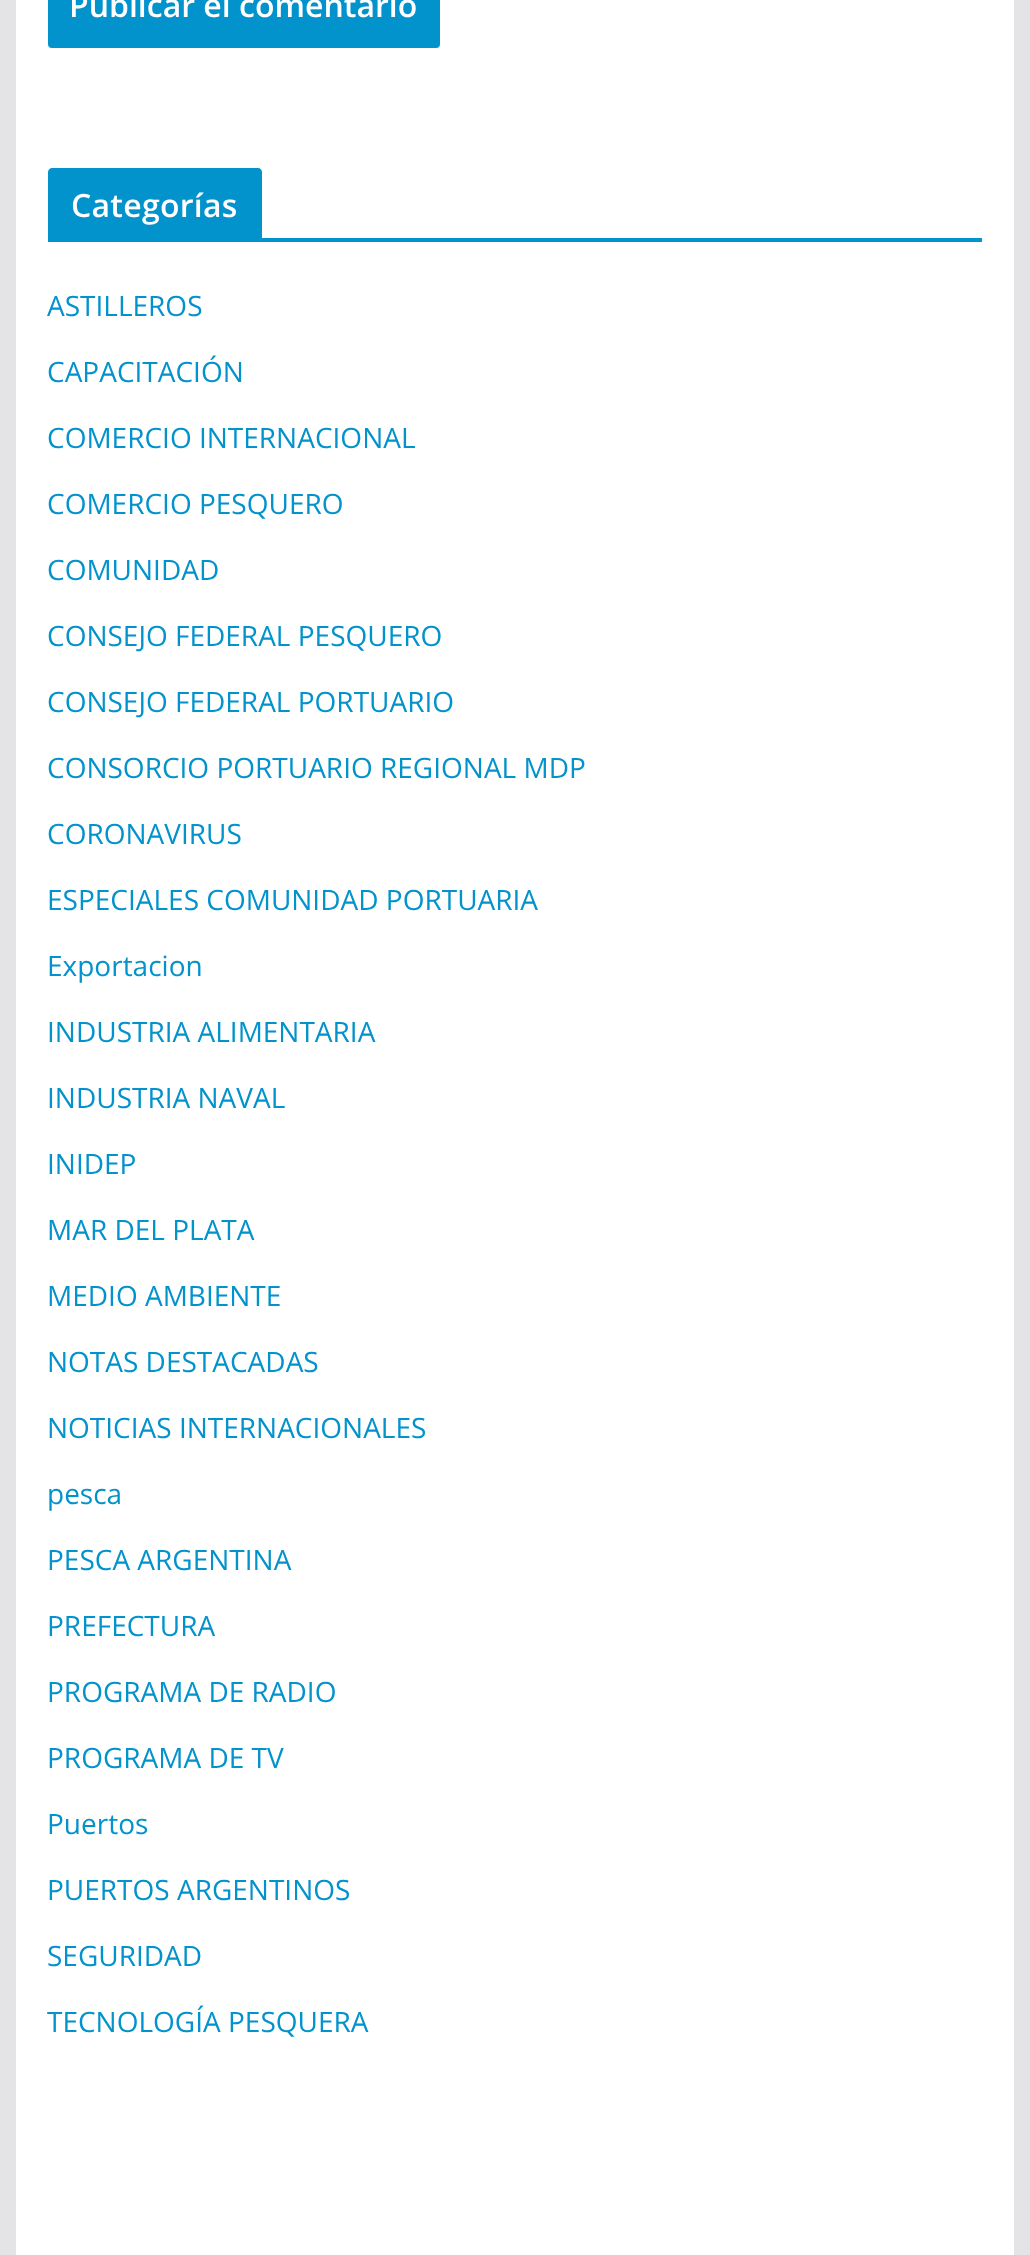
<svg xmlns="http://www.w3.org/2000/svg" width="1030" height="2255">
<rect width="100%" height="100%" fill="#e4e4e7"/>
<rect x="16" width="998" height="2255" fill="#fff"/>
<rect x="49" y="-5" width="390" height="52" rx="3" fill="#0292cc" stroke="#0292cc" stroke-width="2"/>
<text x="69" y="17" style="font-family:Open Sans;font-size:32px;font-weight:600;fill:#fff">Publicar el comentario</text>
<rect x="48" y="238" width="934" height="4" fill="#0292cc"/>
<path d="M52 168h206c2 0 4 2 4 4v66h-214v-66c0-2 2-4 4-4z" fill="#0292cc"/>
<text x="71" y="217" style="font-family:Open Sans;font-size:32px;font-weight:600;letter-spacing:0.25px;fill:#fff">Categorías</text>
<text x="47" y="316" style="font-family:Open Sans;font-size:28px;fill:#0292cc">ASTILLEROS</text>
<text x="47" y="382" style="font-family:Open Sans;font-size:28px;fill:#0292cc">CAPACITACIÓN</text>
<text x="47" y="448" style="font-family:Open Sans;font-size:28px;fill:#0292cc">COMERCIO INTERNACIONAL</text>
<text x="47" y="514" style="font-family:Open Sans;font-size:28px;fill:#0292cc">COMERCIO PESQUERO</text>
<text x="47" y="580" style="font-family:Open Sans;font-size:28px;fill:#0292cc">COMUNIDAD</text>
<text x="47" y="646" style="font-family:Open Sans;font-size:28px;fill:#0292cc">CONSEJO FEDERAL PESQUERO</text>
<text x="47" y="712" style="font-family:Open Sans;font-size:28px;fill:#0292cc">CONSEJO FEDERAL PORTUARIO</text>
<text x="47" y="778" style="font-family:Open Sans;font-size:28px;fill:#0292cc">CONSORCIO PORTUARIO REGIONAL MDP</text>
<text x="47" y="844" style="font-family:Open Sans;font-size:28px;fill:#0292cc">CORONAVIRUS</text>
<text x="47" y="910" style="font-family:Open Sans;font-size:28px;fill:#0292cc">ESPECIALES COMUNIDAD PORTUARIA</text>
<text x="47" y="976" style="font-family:Open Sans;font-size:28px;fill:#0292cc">Exportacion</text>
<text x="47" y="1042" style="font-family:Open Sans;font-size:28px;fill:#0292cc">INDUSTRIA ALIMENTARIA</text>
<text x="47" y="1108" style="font-family:Open Sans;font-size:28px;fill:#0292cc">INDUSTRIA NAVAL</text>
<text x="47" y="1174" style="font-family:Open Sans;font-size:28px;fill:#0292cc">INIDEP</text>
<text x="47" y="1240" style="font-family:Open Sans;font-size:28px;fill:#0292cc">MAR DEL PLATA</text>
<text x="47" y="1306" style="font-family:Open Sans;font-size:28px;fill:#0292cc">MEDIO AMBIENTE</text>
<text x="47" y="1372" style="font-family:Open Sans;font-size:28px;fill:#0292cc">NOTAS DESTACADAS</text>
<text x="47" y="1438" style="font-family:Open Sans;font-size:28px;fill:#0292cc">NOTICIAS INTERNACIONALES</text>
<text x="47" y="1504" style="font-family:Open Sans;font-size:28px;fill:#0292cc">pesca</text>
<text x="47" y="1570" style="font-family:Open Sans;font-size:28px;fill:#0292cc">PESCA ARGENTINA</text>
<text x="47" y="1636" style="font-family:Open Sans;font-size:28px;fill:#0292cc">PREFECTURA</text>
<text x="47" y="1702" style="font-family:Open Sans;font-size:28px;fill:#0292cc">PROGRAMA DE RADIO</text>
<text x="47" y="1768" style="font-family:Open Sans;font-size:28px;fill:#0292cc">PROGRAMA DE TV</text>
<text x="47" y="1834" style="font-family:Open Sans;font-size:28px;fill:#0292cc">Puertos</text>
<text x="47" y="1900" style="font-family:Open Sans;font-size:28px;fill:#0292cc">PUERTOS ARGENTINOS</text>
<text x="47" y="1966" style="font-family:Open Sans;font-size:28px;fill:#0292cc">SEGURIDAD</text>
<text x="47" y="2032" style="font-family:Open Sans;font-size:28px;fill:#0292cc">TECNOLOGÍA PESQUERA</text>
</svg>
